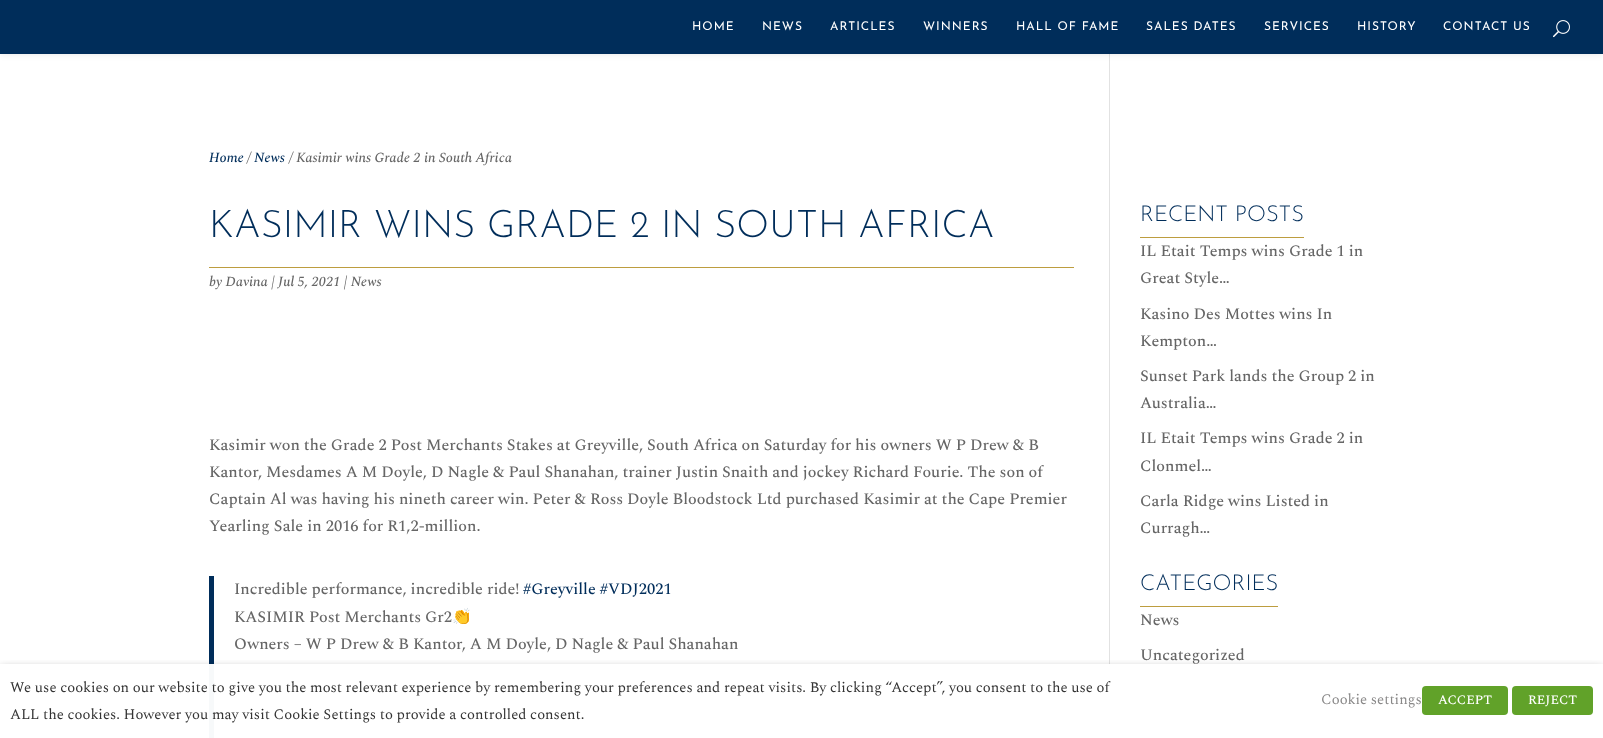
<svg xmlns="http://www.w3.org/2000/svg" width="1603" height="738">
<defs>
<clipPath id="clip1"><rect x="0" y="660" width="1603" height="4"/></clipPath>
</defs>
<rect width="100%" height="100%" fill="#fff"/>
<rect x="1109" y="54" width="1" height="610" fill="#e2e2e2"/>
<rect width="1603" height="54" fill="#0000001a" filter="blur(3.5px)"/>
<rect width="1603" height="54" fill="#002d5a"/>
<text x="692" y="30" style="font-family:'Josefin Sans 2';font-size:12px;font-weight:100;letter-spacing:1px;fill:#fff">HOME</text>
<text x="762" y="30" style="font-family:'Josefin Sans 2';font-size:12px;font-weight:100;letter-spacing:1px;fill:#fff">NEWS</text>
<text x="830" y="30" style="font-family:'Josefin Sans 2';font-size:12px;font-weight:100;letter-spacing:1px;fill:#fff">ARTICLES</text>
<text x="923" y="30" style="font-family:'Josefin Sans 2';font-size:12px;font-weight:100;letter-spacing:1px;fill:#fff">WINNERS</text>
<text x="1016" y="30" style="font-family:'Josefin Sans 2';font-size:12px;font-weight:100;letter-spacing:1px;fill:#fff">HALL OF FAME</text>
<text x="1146" y="30" style="font-family:'Josefin Sans 2';font-size:12px;font-weight:100;letter-spacing:1px;fill:#fff">SALES DATES</text>
<text x="1264" y="30" style="font-family:'Josefin Sans 2';font-size:12px;font-weight:100;letter-spacing:1px;fill:#fff">SERVICES</text>
<text x="1357" y="30" style="font-family:'Josefin Sans 2';font-size:12px;font-weight:100;letter-spacing:1px;fill:#fff">HISTORY</text>
<text x="1443" y="30" style="font-family:'Josefin Sans 2';font-size:12px;font-weight:100;letter-spacing:1px;fill:#fff">CONTACT US</text>
<image x="1553" y="20" width="17" height="18" href="media/1.png"/>
<text x="209" y="162" style="font-family:Spectral;font-size:14px;font-weight:500;font-style:italic;fill:#002d5a">Home</text>
<text x="247" y="162" style="font-family:Spectral;font-size:14px;font-weight:500;font-style:italic;fill:#666">/</text>
<text x="254" y="162" style="font-family:Spectral;font-size:14px;font-weight:500;font-style:italic;fill:#002d5a">News</text>
<text x="289" y="162" style="font-family:Spectral;font-size:14px;font-weight:500;font-style:italic;fill:#666">/ Kasimir wins Grade 2 in South Africa</text>
<rect x="209" y="267" width="865" height="1" fill="#bd9d3f"/>
<text x="209" y="237" style="font-family:Josefin Sans;font-size:38px;font-weight:100;fill:#002d5a">KASIMIR WINS GRADE 2 IN SOUTH AFRICA</text>
<text x="209" y="286" style="font-family:Spectral;font-size:14px;font-weight:500;font-style:italic;fill:#666">by Davina | Jul 5, 2021 | News</text>
<text x="209" y="450" style="font-family:Spectral;font-size:16px;font-weight:500;fill:#666">Kasimir won the Grade 2 Post Merchants Stakes at Greyville, South Africa on Saturday for his owners W P Drew &amp; B</text>
<text x="209" y="477" style="font-family:Spectral;font-size:16px;font-weight:500;fill:#666">Kantor, Mesdames A M Doyle, D Nagle &amp; Paul Shanahan, trainer Justin Snaith and jockey Richard Fourie. The son of</text>
<text x="209" y="504" style="font-family:Spectral;font-size:16px;font-weight:500;fill:#666">Captain Al was having his nineth career win. Peter &amp; Ross Doyle Bloodstock Ltd purchased Kasimir at the Cape Premier</text>
<text x="209" y="531" style="font-family:Spectral;font-size:16px;font-weight:500;fill:#666">Yearling Sale in 2016 for R1,2-million.</text>
<rect x="209" y="576" width="5" height="88" fill="#002d5a"/>
<rect x="209" y="664" width="5" height="74" fill="#f7f9fa"/>
<text x="234" y="594" style="font-family:Spectral;font-size:16px;font-weight:500;fill:#666">Incredible performance, incredible ride!</text>
<text x="523" y="594" style="font-family:Spectral;font-size:16px;font-weight:500;fill:#002d5a">#Greyville #VDJ2021</text>
<text x="234" y="622" style="font-family:Spectral;font-size:16px;font-weight:500;fill:#666">KASIMIR Post Merchants Gr2</text>
<text x="452" y="622" style="font-family:Noto Color Emoji;font-size:16px;fill:#666">👏</text>
<text x="234" y="649" style="font-family:Spectral;font-size:16px;font-weight:500;fill:#666">Owners – W P Drew &amp; B Kantor, A M Doyle, D Nagle &amp; Paul Shanahan</text>
<rect x="1140" y="237" width="164" height="1" fill="#bd9d3f"/>
<text x="1140" y="221" style="font-family:Josefin Sans;font-size:22px;font-weight:100;fill:#002d5a">RECENT POSTS</text>
<text x="1140" y="256" style="font-family:Spectral;font-size:16px;font-weight:500;fill:#666">IL Etait Temps wins Grade 1 in</text>
<text x="1140" y="283" style="font-family:Spectral;font-size:16px;font-weight:500;fill:#666">Great Style…</text>
<text x="1140" y="319" style="font-family:Spectral;font-size:16px;font-weight:500;fill:#666">Kasino Des Mottes wins In</text>
<text x="1140" y="346" style="font-family:Spectral;font-size:16px;font-weight:500;fill:#666">Kempton…</text>
<text x="1140" y="381" style="font-family:Spectral;font-size:16px;font-weight:500;fill:#666">Sunset Park lands the Group 2 in</text>
<text x="1140" y="408" style="font-family:Spectral;font-size:16px;font-weight:500;fill:#666">Australia…</text>
<text x="1140" y="443" style="font-family:Spectral;font-size:16px;font-weight:500;fill:#666">IL Etait Temps wins Grade 2 in</text>
<text x="1140" y="471" style="font-family:Spectral;font-size:16px;font-weight:500;fill:#666">Clonmel…</text>
<text x="1140" y="506" style="font-family:Spectral;font-size:16px;font-weight:500;fill:#666">Carla Ridge wins Listed in</text>
<text x="1140" y="533" style="font-family:Spectral;font-size:16px;font-weight:500;fill:#666">Curragh…</text>
<rect x="1140" y="606" width="138" height="1" fill="#bd9d3f"/>
<text x="1140" y="590" style="font-family:Josefin Sans;font-size:22px;font-weight:100;fill:#002d5a">CATEGORIES</text>
<text x="1140" y="625" style="font-family:Spectral;font-size:16px;font-weight:500;fill:#666">News</text>
<text x="1140" y="660" style="font-family:Spectral;font-size:16px;font-weight:500;fill:#666">Uncategorized</text>
<g clip-path="url(#clip1)">
<rect y="669" width="1603" height="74" fill="#00000080" filter="blur(5px)"/>
</g>
<text x="10" y="692" style="font-family:Spectral;font-size:14.67px;fill:#333">We use cookies on our website to give you the most relevant experience by remembering your preferences and repeat visits. By clicking “Accept”, you consent to the use of</text>
<text x="10" y="719" style="font-family:Spectral;font-size:14.67px;fill:#333">ALL the cookies. However you may visit Cookie Settings to provide a controlled consent.</text>
<text x="1321" y="704" style="font-family:Spectral;font-size:14.67px;fill:#898888">Cookie settings</text>
<rect x="1422" y="686" width="86" height="29" rx="4" fill="#61a229"/>
<text x="1438" y="704" style="font-family:Spectral;font-size:13px;font-weight:500;fill:#fff">ACCEPT</text>
<rect x="1512" y="686" width="81" height="29" rx="4" fill="#61a229"/>
<text x="1528" y="704" style="font-family:Spectral;font-size:13px;font-weight:500;fill:#fff">REJECT</text>
</svg>
